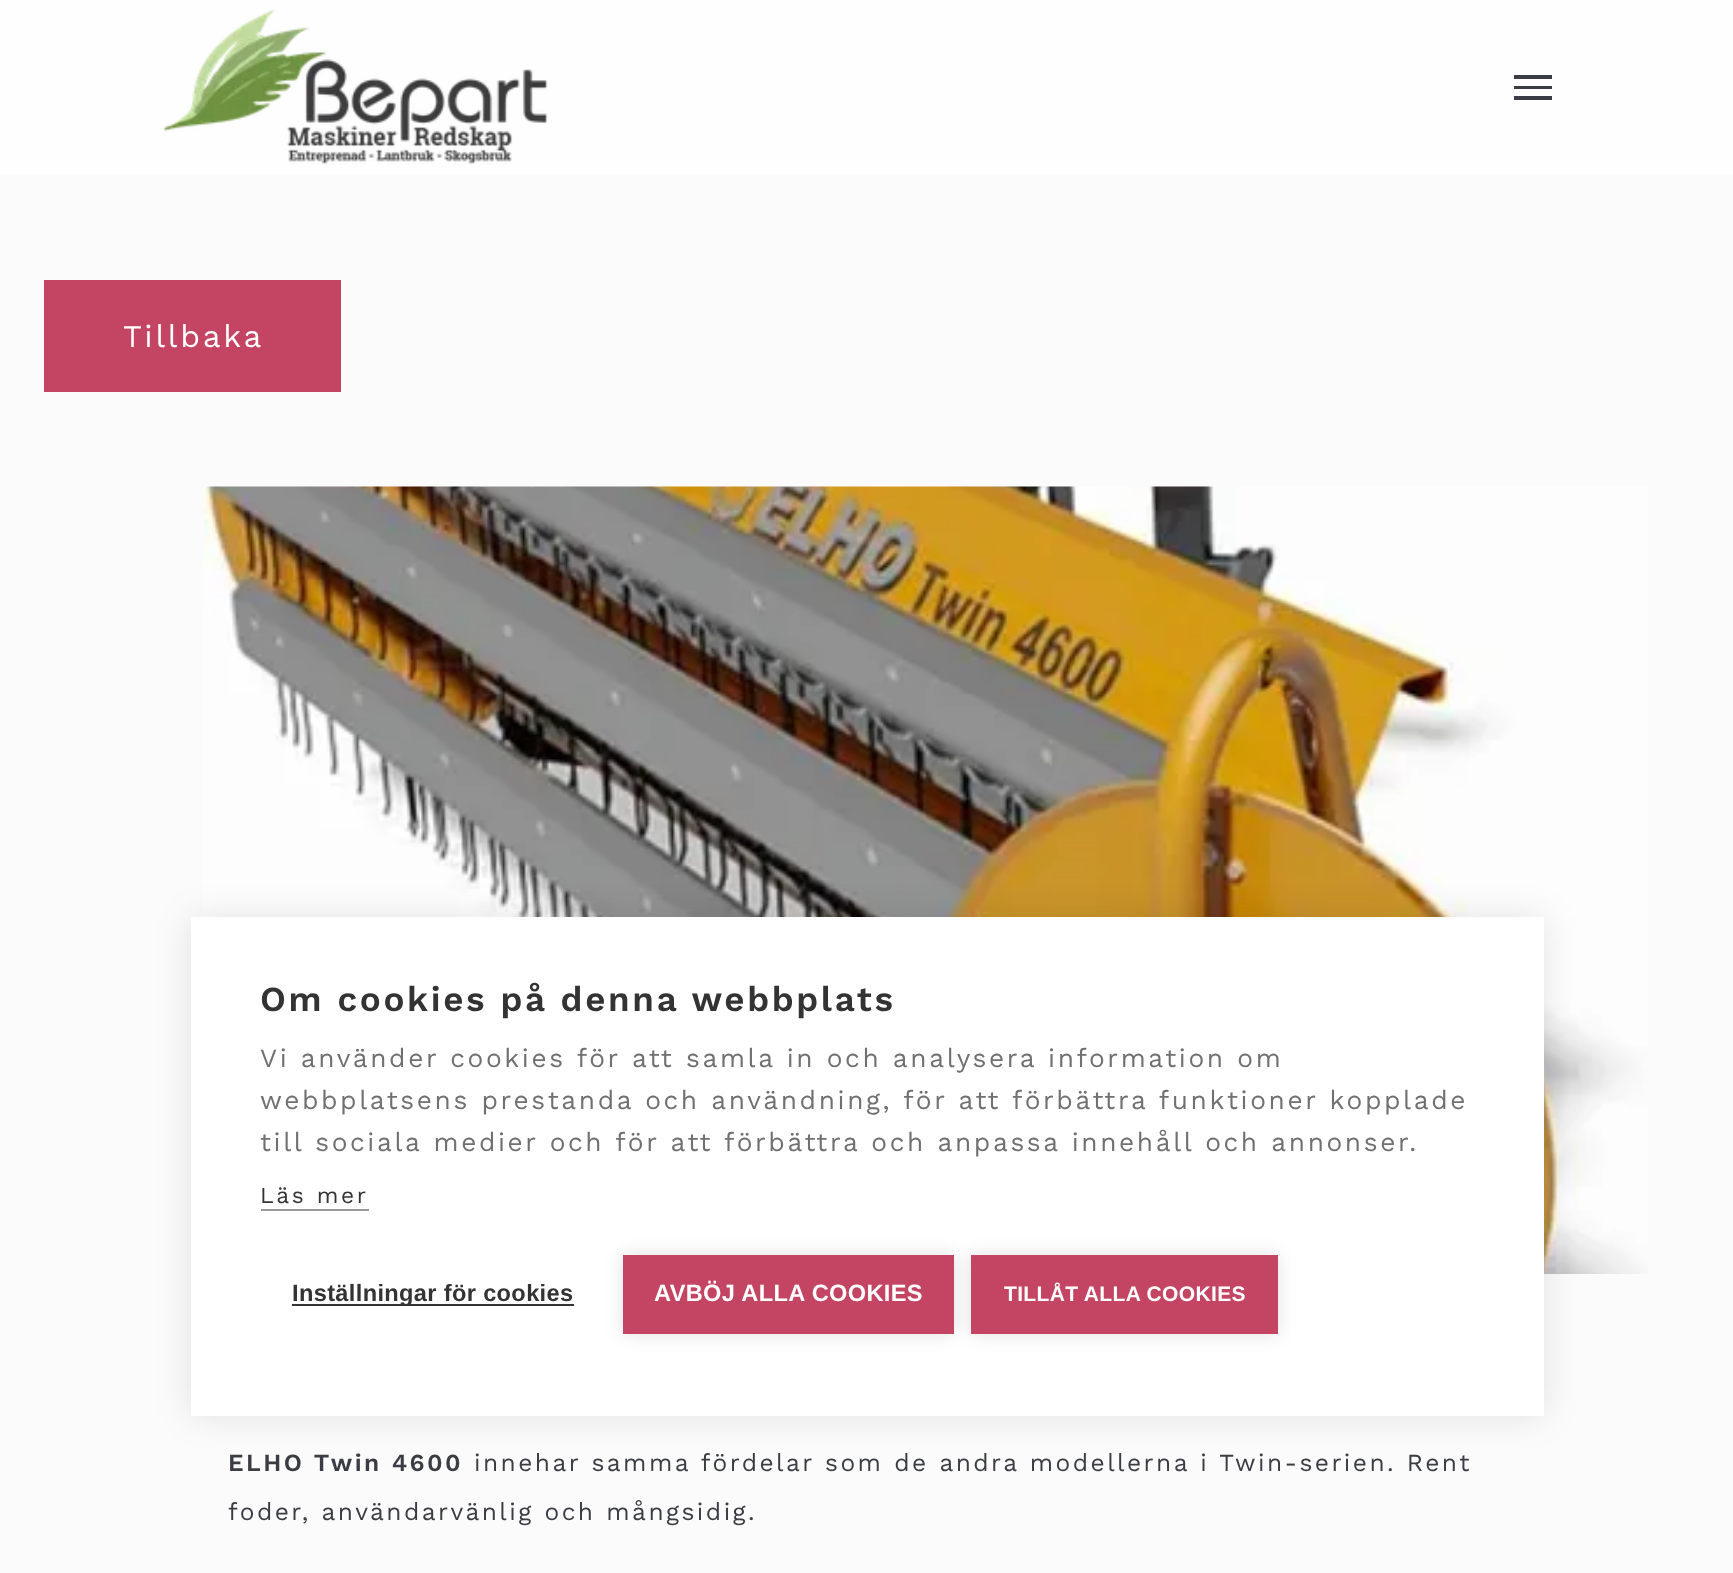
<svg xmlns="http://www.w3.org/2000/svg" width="1733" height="1573">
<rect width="100%" height="100%" fill="#fbfbfb"/>
<rect width="1733" height="175" fill="#fefefe"/>
<image x="164" y="9" width="384" height="156" href="media/1.png"/>
<rect x="1514" y="75" width="38" height="4" fill="#3b3d44"/>
<rect x="1514" y="86" width="38" height="3" fill="#3b3d44"/>
<rect x="1514" y="96" width="38" height="4" fill="#3b3d44"/>
<rect x="44" y="280" width="297" height="112" fill="#c34463"/>
<text x="123" y="347" style="font-family:Work Sans;font-size:31.5px;letter-spacing:2.75px;fill:#fff">Tillbaka</text>
<image x="203" y="486" width="1445" height="788" href="media/2.png"/>
<text x="228" y="1471" style="font-family:Work Sans;font-size:24.5px;font-weight:600;letter-spacing:2.45px;fill:#3b3d44">ELHO Twin 4600</text>
<text x="474" y="1471" style="font-family:Work Sans;font-size:24.5px;letter-spacing:2.45px;fill:#3b3d44">innehar samma fördelar som de andra modellerna i Twin-serien. Rent</text>
<text x="228" y="1520" style="font-family:Work Sans;font-size:24.5px;letter-spacing:2.45px;fill:#3b3d44">foder, användarvänlig och mångsidig.</text>
<rect x="191" y="917" width="1353" height="499" fill="#0000001a" filter="blur(17.5px)"/>
<rect x="191" y="917" width="1353" height="499" fill="#fff"/>
<text x="260" y="1011" style="font-family:Work Sans;font-size:35px;font-weight:600;letter-spacing:2.62px;fill:#333">Om cookies på denna webbplats</text>
<text x="260" y="1067" style="font-family:Work Sans;font-size:26.25px;letter-spacing:2.62px;fill:#707070">Vi använder cookies för att samla in och analysera information om</text>
<text x="260" y="1109" style="font-family:Work Sans;font-size:26.25px;letter-spacing:2.62px;fill:#707070">webbplatsens prestanda och användning, för att förbättra funktioner kopplade</text>
<text x="260" y="1151" style="font-family:Work Sans;font-size:26.25px;letter-spacing:2.62px;fill:#707070">till sociala medier och för att förbättra och anpassa innehåll och annonser.</text>
<text x="260" y="1203" style="font-family:Work Sans;font-size:22.75px;letter-spacing:2.62px;fill:#333">Läs mer</text>
<rect x="261" y="1209" width="108" height="2" fill="#999"/>
<rect x="292" y="1304" width="282" height="2" fill="#333"/>
<text x="292" y="1301" style="font-family:Liberation Sans;font-size:23.6px;font-weight:bold;letter-spacing:0.35px;fill:#333">Inställningar för cookies</text>
<rect x="623" y="1255" width="331" height="79" fill="#0000001f" filter="blur(9px)"/>
<rect x="623" y="1255" width="331" height="79" fill="#c34463"/>
<text x="654" y="1301" style="font-family:Liberation Sans;font-size:23.6px;font-weight:bold;letter-spacing:0.35px;fill:#fff">AVBÖJ ALLA COOKIES</text>
<rect x="971" y="1255" width="307" height="79" fill="#0000001f" filter="blur(9px)"/>
<rect x="971" y="1255" width="307" height="79" fill="#c34463"/>
<text x="1004" y="1301" style="font-family:Liberation Sans;font-size:21px;font-weight:bold;letter-spacing:0.35px;fill:#fff">TILLÅT ALLA COOKIES</text>
</svg>
